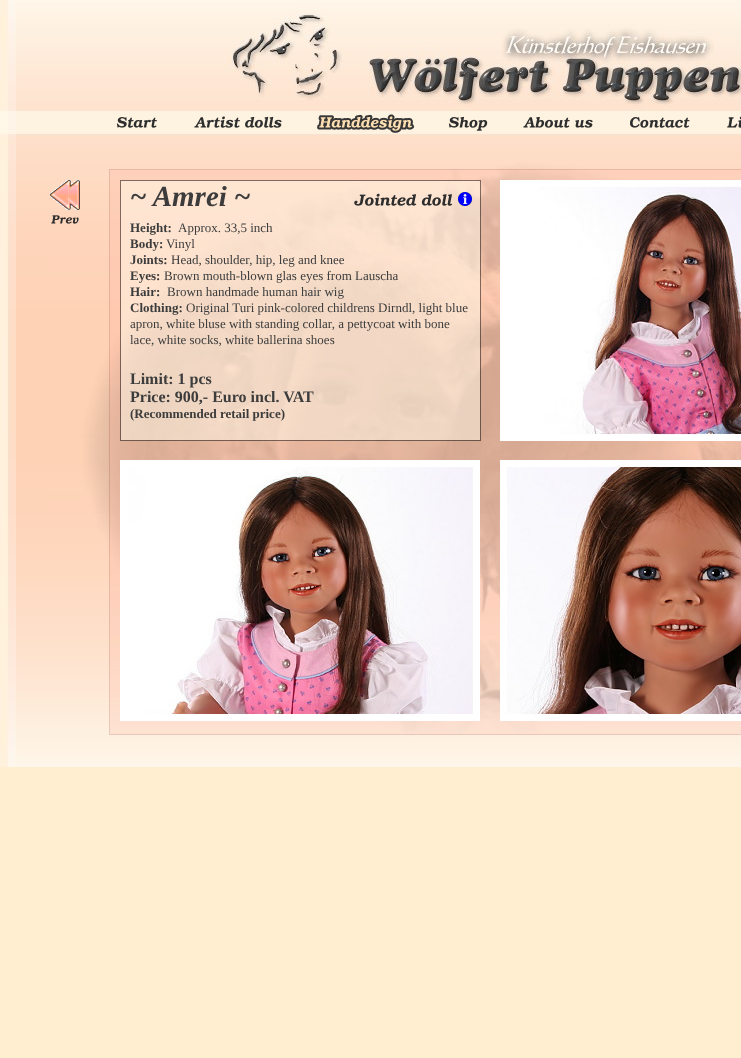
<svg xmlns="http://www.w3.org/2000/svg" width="741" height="1058">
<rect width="100%" height="100%" fill="#ffeed0"/>
<image x="0" y="0" width="741" height="767" href="media/1.png"/>
<image x="317" y="114" width="98" height="19" href="media/2.png"/>
<image x="116" y="117" width="41" height="11" href="media/3.png"/>
<image x="194" y="116" width="88" height="12" href="media/4.png"/>
<image x="448" y="116" width="40" height="15" href="media/5.png"/>
<image x="523" y="116" width="70" height="12" href="media/6.png"/>
<image x="630" y="117" width="60" height="11" href="media/7.png"/>
<image x="727" y="116" width="14" height="12" href="media/8.png"/>
<image x="50" y="180" width="30" height="44" href="media/9.png"/>
<image x="109" y="169" width="632" height="566" href="media/10.png"/>
<image x="120" y="180" width="361" height="261" href="media/11.png"/>
<image x="500" y="180" width="241" height="261" href="media/12.png"/>
<text x="130" y="206" style="font-family:Liberation Serif;font-size:29px;font-weight:bold;font-style:italic;fill:#3c3c3c">~ Amrei ~</text>
<image x="354" y="192" width="118" height="14" href="media/13.png"/>
<text x="130" y="232" style="font-family:Liberation Serif;font-size:13px;font-weight:bold;fill:#3c3c3c">Height:</text>
<text x="178" y="232" style="font-family:Liberation Serif;font-size:13px;fill:#3c3c3c">Approx. 33,5 inch</text>
<text x="130" y="248" style="font-family:Liberation Serif;font-size:13px;font-weight:bold;fill:#3c3c3c">Body:</text>
<text x="166" y="248" style="font-family:Liberation Serif;font-size:13px;fill:#3c3c3c">Vinyl</text>
<text x="130" y="264" style="font-family:Liberation Serif;font-size:13px;font-weight:bold;fill:#3c3c3c">Joints:</text>
<text x="171" y="264" style="font-family:Liberation Serif;font-size:13px;fill:#3c3c3c">Head, shoulder, hip, leg and knee</text>
<text x="130" y="280" style="font-family:Liberation Serif;font-size:13px;font-weight:bold;fill:#3c3c3c">Eyes:</text>
<text x="164" y="280" style="font-family:Liberation Serif;font-size:13px;fill:#3c3c3c">Brown mouth-blown glas eyes from Lauscha</text>
<text x="130" y="296" style="font-family:Liberation Serif;font-size:13px;font-weight:bold;fill:#3c3c3c">Hair:</text>
<text x="167" y="296" style="font-family:Liberation Serif;font-size:13px;fill:#3c3c3c">Brown handmade human hair wig</text>
<text x="130" y="312" style="font-family:Liberation Serif;font-size:13px;font-weight:bold;fill:#3c3c3c">Clothing:</text>
<text x="186" y="312" style="font-family:Liberation Serif;font-size:13px;fill:#3c3c3c">Original Turi pink-colored childrens Dirndl, light blue</text>
<text x="130" y="328" style="font-family:Liberation Serif;font-size:13px;fill:#3c3c3c">apron, white bluse with standing collar, a pettycoat with bone</text>
<text x="130" y="344" style="font-family:Liberation Serif;font-size:13px;fill:#3c3c3c">lace, white socks, white ballerina shoes</text>
<text x="130" y="384" style="font-family:Liberation Serif;font-size:16px;font-weight:bold;fill:#3c3c3c">Limit: 1 pcs</text>
<text x="130" y="402" style="font-family:Liberation Serif;font-size:16px;font-weight:bold;fill:#3c3c3c">Price: 900,- Euro incl. VAT</text>
<text x="130" y="418" style="font-family:Liberation Serif;font-size:13px;font-weight:bold;fill:#3c3c3c">(Recommended retail price)</text>
<image x="120" y="460" width="360" height="261" href="media/14.png"/>
<image x="500" y="460" width="241" height="261" href="media/15.png"/>
</svg>
